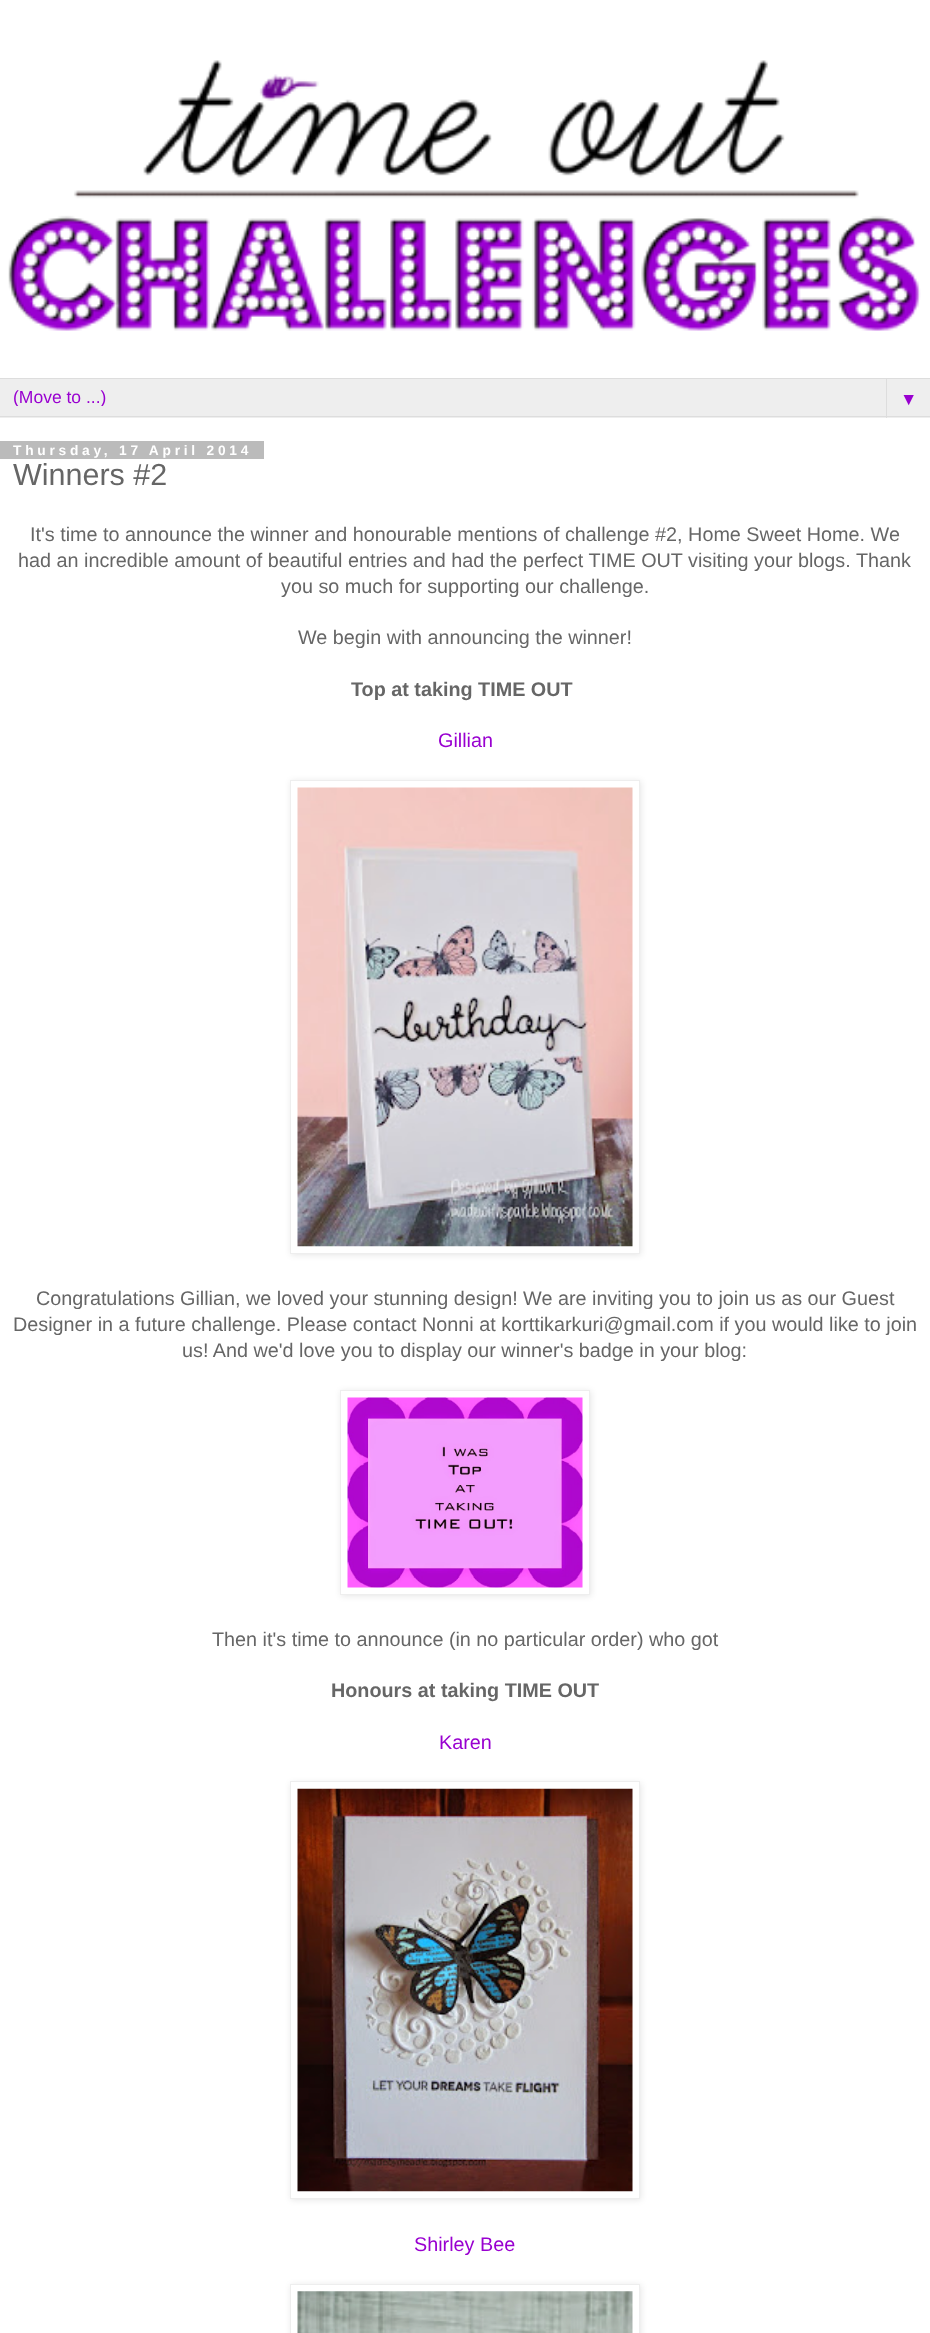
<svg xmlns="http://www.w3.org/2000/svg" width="930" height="2333">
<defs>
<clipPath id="clip1"><rect x="13" y="386" width="905" height="20"/></clipPath>
<clipPath id="clip2"><path d="M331 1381h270v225h-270zm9 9h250v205h-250z" clip-rule="evenodd"/></clipPath>
<clipPath id="clip3"><path d="M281 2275h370v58h-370zm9 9h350v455h-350z" clip-rule="evenodd"/></clipPath>
</defs>
<rect width="100%" height="100%" fill="#fff"/>
<image x="8" y="60" width="913" height="271" href="media/1.png"/>
<rect y="379" width="930" height="39" fill="#eee"/>
<rect y="378" width="930" height="1" fill="#ddd"/>
<rect y="416" width="930" height="1" fill="#ddd"/>
<g clip-path="url(#clip1)">
<text x="13" y="403" style="font-family:Liberation Sans;font-size:17.5px;fill:#9900d0">(Move to ...)</text>
</g>
<rect x="886" y="378" width="1" height="40" fill="#ddd"/>
<text x="900" y="405" style="font-family:Liberation Sans;font-size:17.5px;fill:#9900d0">▼</text>
<rect y="441" width="264" height="18" fill="#bbb"/>
<text x="13" y="455" style="font-family:Liberation Sans;font-size:13.75px;font-weight:bold;letter-spacing:3.75px;fill:#fff">Thursday, 17 April 2014</text>
<text x="13" y="485" style="font-family:Liberation Sans;font-size:30.5px;fill:#666">Winners #2</text>
<text x="30" y="541" style="font-family:Liberation Sans;font-size:19.8px;fill:#666">It's time to announce the winner and honourable mentions of challenge #2, Home Sweet Home. We</text>
<text x="18" y="567" style="font-family:Liberation Sans;font-size:19.8px;fill:#666">had an incredible amount of beautiful entries and had the perfect TIME OUT visiting your blogs. Thank</text>
<text x="281" y="593" style="font-family:Liberation Sans;font-size:19.8px;fill:#666">you so much for supporting our challenge.</text>
<text x="298" y="644" style="font-family:Liberation Sans;font-size:19.8px;fill:#666">We begin with announcing the winner!</text>
<text x="351" y="696" style="font-family:Liberation Sans;font-size:19.8px;font-weight:bold;fill:#666">Top at taking TIME OUT</text>
<text x="438" y="747" style="font-family:Liberation Sans;font-size:19.8px;fill:#9900d0">Gillian</text>
<rect x="291" y="781" width="350" height="474" fill="#0000001a" filter="blur(3px)"/>
<rect x="290.5" y="780.5" width="349" height="473" fill="#fff" stroke="#eee"/>
<image x="297" y="787" width="336" height="460" href="media/2.png"/>
<text x="36" y="1305" style="font-family:Liberation Sans;font-size:19.8px;fill:#666">Congratulations Gillian, we loved your stunning design! We are inviting you to join us as our Guest</text>
<text x="13" y="1331" style="font-family:Liberation Sans;font-size:19.8px;fill:#666">Designer in a future challenge. Please contact Nonni at korttikarkuri@gmail.com if you would like to join</text>
<text x="182" y="1357" style="font-family:Liberation Sans;font-size:19.8px;fill:#666">us! And we'd love you to display our winner's badge in your blog:</text>
<g clip-path="url(#clip2)">
<rect x="341" y="1391" width="250" height="205" fill="#0000001a" filter="blur(3px)"/>
</g>
<rect x="340.5" y="1390.5" width="249" height="204" fill="none" stroke="#eee"/>
<image x="347" y="1397" width="236" height="191" href="media/3.png"/>
<text x="212" y="1646" style="font-family:Liberation Sans;font-size:19.8px;fill:#666">Then it's time to announce (in no particular order) who got</text>
<text x="331" y="1697" style="font-family:Liberation Sans;font-size:19.8px;font-weight:bold;fill:#666">Honours at taking TIME OUT</text>
<text x="439" y="1749" style="font-family:Liberation Sans;font-size:19.8px;fill:#9900d0">Karen</text>
<rect x="291" y="1783" width="350" height="417" fill="#0000001a" filter="blur(3px)"/>
<rect x="290.5" y="1781.5" width="349" height="417" fill="#fff" stroke="#eee"/>
<image x="297" y="1788" width="336" height="404" href="media/4.png"/>
<text x="414" y="2251" style="font-family:Liberation Sans;font-size:19.8px;fill:#9900d0">Shirley Bee</text>
<g clip-path="url(#clip3)">
<rect x="291" y="2285" width="350" height="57" fill="#0000001a" filter="blur(3px)"/>
</g>
<rect x="290.5" y="2284.5" width="349" height="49" fill="none" stroke="#eee"/>
<image x="297" y="2291" width="336" height="42" href="media/5.png"/>
</svg>
